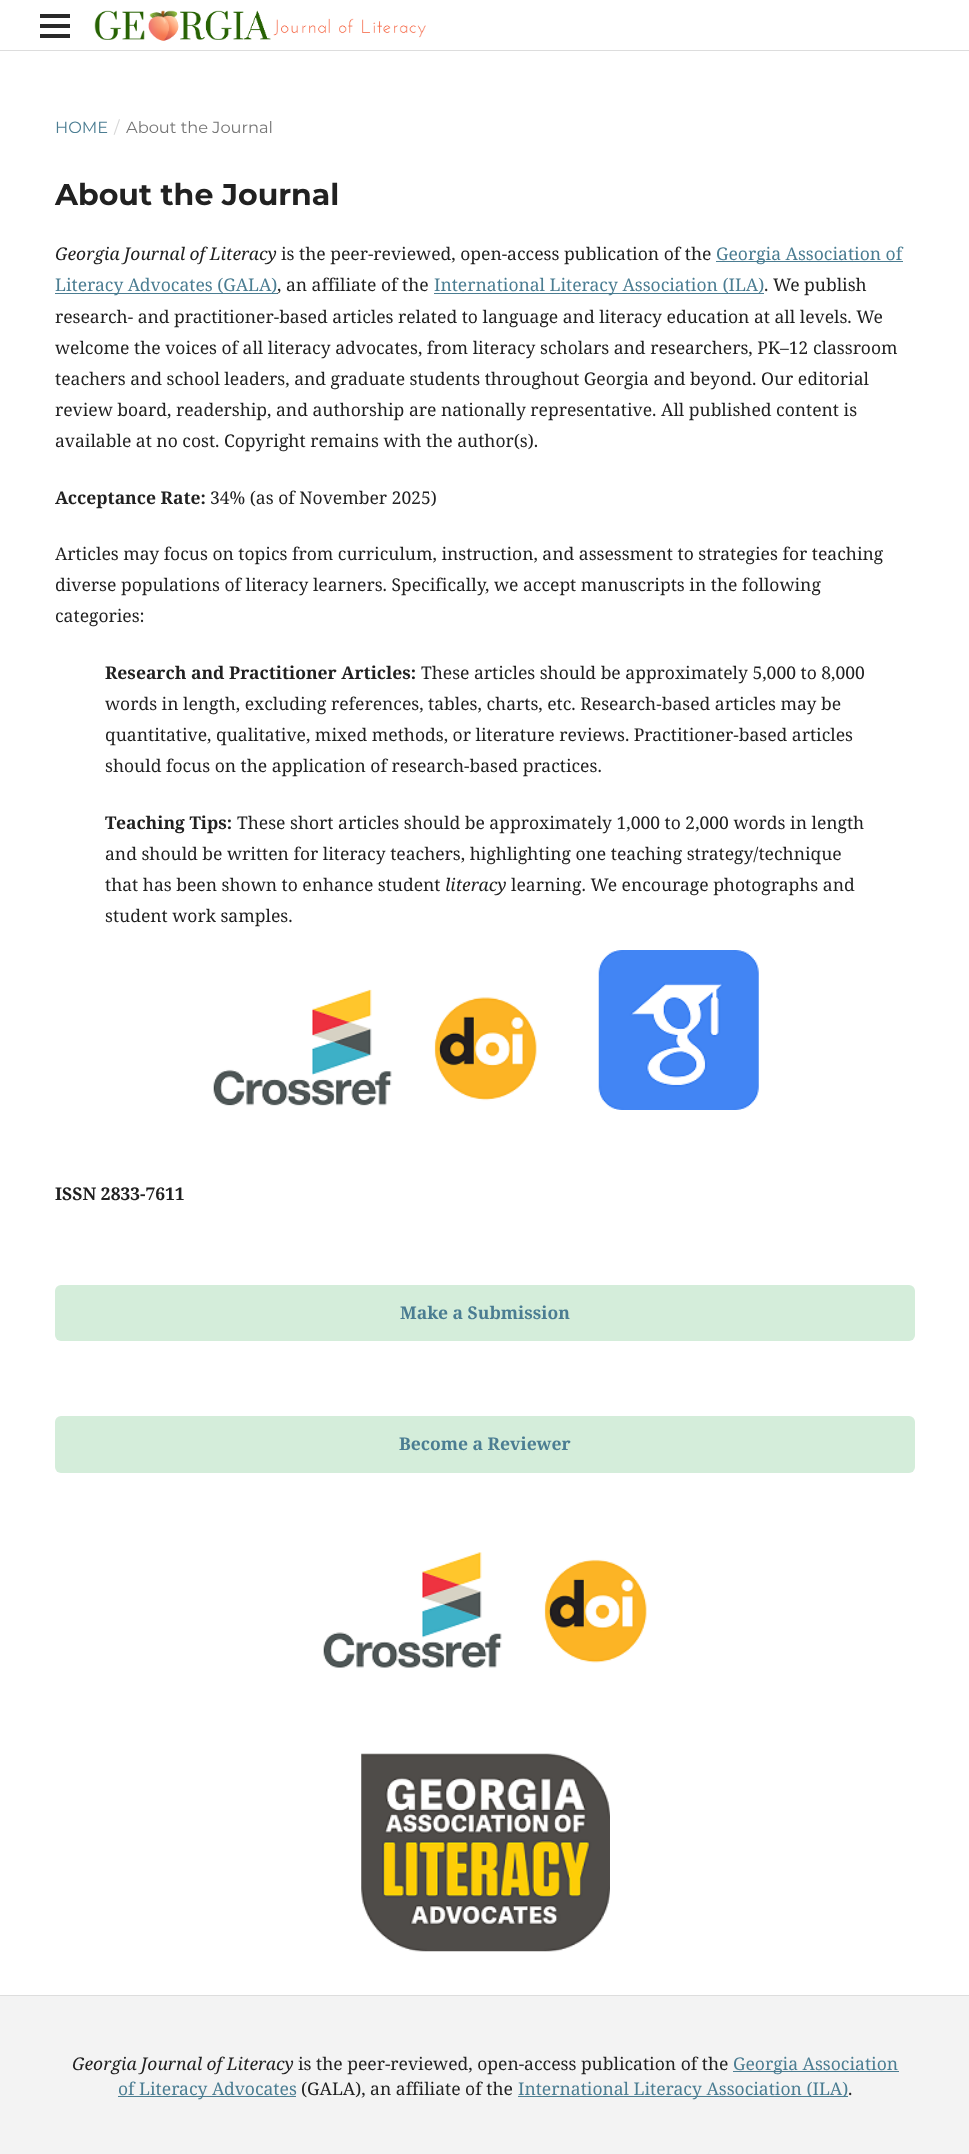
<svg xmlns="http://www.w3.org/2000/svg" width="969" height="2154">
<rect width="100%" height="100%" fill="#fff"/>
<rect y="50" width="969" height="1" fill="#ddd"/>
<rect x="40" y="34" width="30" height="4" fill="#292929"/>
<rect x="40" y="14" width="30" height="4" fill="#292929"/>
<rect x="40" y="24" width="30" height="4" fill="#292929"/>
<image x="94" y="10" width="332" height="31" href="media/1.png"/>
<text x="55" y="133" style="font-family:Montserrat;font-size:16.25px;fill:#4b7d92">HOME</text>
<text x="114" y="133" style="font-family:Montserrat;font-size:16.25px;fill:#d6d6d6">/</text>
<text x="126" y="133" style="font-family:Montserrat;font-size:16.25px;fill:#757575">About the Journal</text>
<text x="55" y="205" style="font-family:Montserrat;font-size:30px;font-weight:bold;fill:#212121">About the Journal</text>
<text x="55" y="260" style="font-family:Noto Serif;font-size:17.5px;font-style:italic;fill:#212121">Georgia Journal of Literacy</text>
<text x="281" y="260" style="font-family:Noto Serif;font-size:17.5px;fill:#212121">is the peer-reviewed, open-access publication of the</text>
<rect x="716" y="261" width="187" height="1" fill="#4b7d92"/>
<text x="716" y="260" style="font-family:Noto Serif;font-size:17.5px;fill:#4b7d92">Georgia Association of</text>
<rect x="55" y="293" width="223" height="1" fill="#4b7d92"/>
<text x="55" y="291" style="font-family:Noto Serif;font-size:17.5px;fill:#4b7d92">Literacy Advocates (GALA)</text>
<text x="277" y="291" style="font-family:Noto Serif;font-size:17.5px;fill:#212121">, an affiliate of the</text>
<rect x="434" y="293" width="330" height="1" fill="#4b7d92"/>
<text x="434" y="291" style="font-family:Noto Serif;font-size:17.5px;fill:#4b7d92">International Literacy Association (ILA)</text>
<text x="764" y="291" style="font-family:Noto Serif;font-size:17.5px;fill:#212121">. We publish</text>
<text x="55" y="323" style="font-family:Noto Serif;font-size:17.5px;fill:#212121">research- and practitioner-based articles related to language and literacy education at all levels. We</text>
<text x="55" y="354" style="font-family:Noto Serif;font-size:17.5px;fill:#212121">welcome the voices of all literacy advocates, from literacy scholars and researchers, PK–12 classroom</text>
<text x="55" y="385" style="font-family:Noto Serif;font-size:17.5px;fill:#212121">teachers and school leaders, and graduate students throughout Georgia and beyond. Our editorial</text>
<text x="55" y="416" style="font-family:Noto Serif;font-size:17.5px;fill:#212121">review board, readership, and authorship are nationally representative. All published content is</text>
<text x="55" y="447" style="font-family:Noto Serif;font-size:17.5px;fill:#212121">available at no cost. Copyright remains with the author(s).</text>
<text x="55" y="504" style="font-family:Noto Serif;font-size:17.5px;font-weight:bold;fill:#212121">Acceptance Rate:</text>
<text x="210" y="504" style="font-family:Noto Serif;font-size:17.5px;fill:#212121">34% (as of November 2025)</text>
<text x="55" y="560" style="font-family:Noto Serif;font-size:17.5px;fill:#212121">Articles may focus on topics from curriculum, instruction, and assessment to strategies for teaching</text>
<text x="55" y="591" style="font-family:Noto Serif;font-size:17.5px;fill:#212121">diverse populations of literacy learners. Specifically, we accept manuscripts in the following</text>
<text x="55" y="622" style="font-family:Noto Serif;font-size:17.5px;fill:#212121">categories:</text>
<text x="105" y="679" style="font-family:Noto Serif;font-size:17.5px;font-weight:bold;fill:#212121">Research and Practitioner Articles:</text>
<text x="421" y="679" style="font-family:Noto Serif;font-size:17.5px;fill:#212121">These articles should be approximately 5,000 to 8,000</text>
<text x="105" y="710" style="font-family:Noto Serif;font-size:17.5px;fill:#212121">words in length, excluding references, tables, charts, etc. Research-based articles may be</text>
<text x="105" y="741" style="font-family:Noto Serif;font-size:17.5px;fill:#212121">quantitative, qualitative, mixed methods, or literature reviews. Practitioner-based articles</text>
<text x="105" y="772" style="font-family:Noto Serif;font-size:17.5px;fill:#212121">should focus on the application of research-based practices.</text>
<text x="105" y="829" style="font-family:Noto Serif;font-size:17.5px;font-weight:bold;fill:#212121">Teaching Tips:</text>
<text x="237" y="829" style="font-family:Noto Serif;font-size:17.5px;fill:#212121">These short articles should be approximately 1,000 to 2,000 words in length</text>
<text x="105" y="860" style="font-family:Noto Serif;font-size:17.5px;fill:#212121">and should be written for literacy teachers, highlighting one teaching strategy/technique</text>
<text x="105" y="891" style="font-family:Noto Serif;font-size:17.5px;fill:#212121">that has been shown to enhance student</text>
<text x="445" y="891" style="font-family:Noto Serif;font-size:17.5px;font-style:italic;fill:#212121">literacy</text>
<text x="511" y="891" style="font-family:Noto Serif;font-size:17.5px;fill:#212121">learning. We encourage photographs and</text>
<text x="105" y="922" style="font-family:Noto Serif;font-size:17.5px;fill:#212121">student work samples.</text>
<image x="213" y="989" width="324" height="117" href="media/2.png"/>
<image x="598" y="950" width="161" height="160" href="media/3.png"/>
<text x="55" y="1200" style="font-family:Noto Serif;font-size:17.5px;font-weight:bold;fill:#212121">ISSN 2833-7611</text>
<rect x="55" y="1285" width="860" height="56" rx="6" fill="#d4edda"/>
<text x="400" y="1319" style="font-family:Noto Serif;font-size:17.5px;font-weight:bold;fill:#4b7d92">Make a Submission</text>
<rect x="55" y="1416" width="860" height="57" rx="6" fill="#d4edda"/>
<text x="399" y="1450" style="font-family:Noto Serif;font-size:17.5px;font-weight:bold;fill:#4b7d92">Become a Reviewer</text>
<image x="323" y="1552" width="324" height="116" href="media/4.png"/>
<image x="361" y="1753" width="249" height="199" href="media/5.png"/>
<rect y="1996" width="969" height="158" fill="#f3f3f3"/>
<rect y="1995" width="969" height="1" fill="#ddd"/>
<text x="72" y="2070" style="font-family:Noto Serif;font-size:17.5px;font-style:italic;fill:#212121">Georgia Journal of Literacy</text>
<text x="298" y="2070" style="font-family:Noto Serif;font-size:17.5px;fill:#212121">is the peer-reviewed, open-access publication of the</text>
<rect x="733" y="2071" width="166" height="1" fill="#4b7d92"/>
<text x="733" y="2070" style="font-family:Noto Serif;font-size:17.5px;fill:#4b7d92">Georgia Association</text>
<rect x="118" y="2096" width="178" height="1" fill="#4b7d92"/>
<text x="118" y="2095" style="font-family:Noto Serif;font-size:17.5px;fill:#4b7d92">of Literacy Advocates</text>
<text x="301" y="2095" style="font-family:Noto Serif;font-size:17.5px;fill:#212121">(GALA), an affiliate of the</text>
<rect x="518" y="2096" width="330" height="1" fill="#4b7d92"/>
<text x="518" y="2095" style="font-family:Noto Serif;font-size:17.5px;fill:#4b7d92">International Literacy Association (ILA)</text>
<text x="848" y="2095" style="font-family:Noto Serif;font-size:17.5px;fill:#212121">.</text>
</svg>
